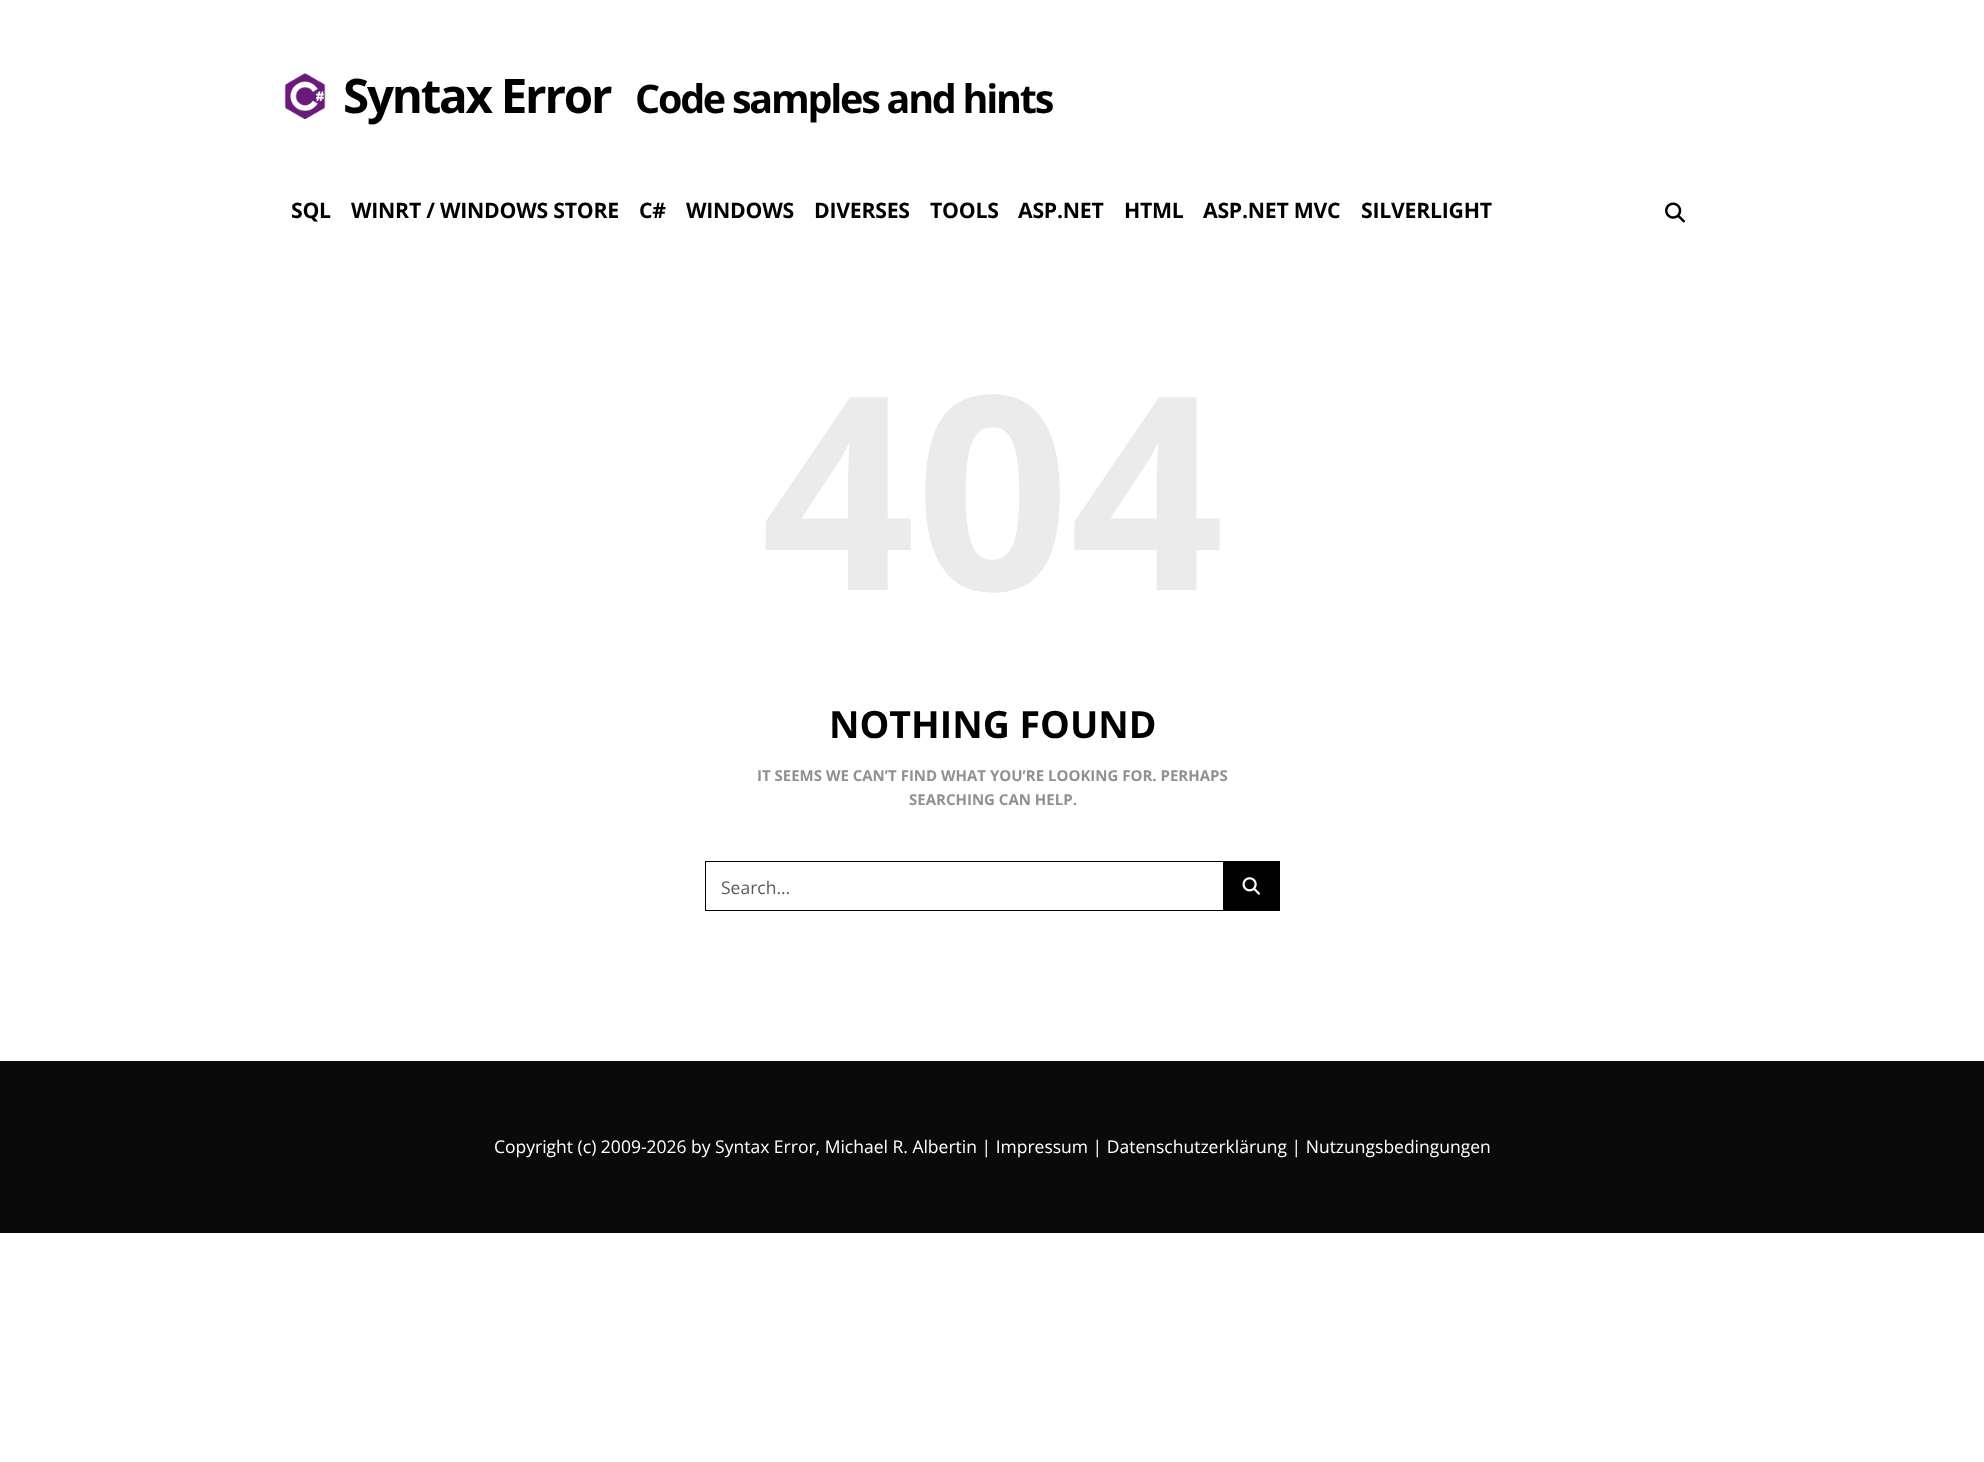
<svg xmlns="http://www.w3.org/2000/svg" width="1984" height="1462">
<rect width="100%" height="100%" fill="#fff"/>
<image x="284" y="73" width="42" height="46" href="media/1.png"/>
<text x="343" y="113" style="font-family:Open Sans;font-size:47.5px;font-weight:bold;letter-spacing:-2.25px;fill:#010101">Syntax Error</text>
<text x="635" y="113" style="font-family:Open Sans;font-size:39.5px;font-weight:bold;letter-spacing:-2.25px;fill:#010101">Code samples and hints</text>
<text x="291" y="218" style="font-family:Open Sans;font-size:21.25px;font-weight:bold;letter-spacing:-0.25px;fill:#010101">SQL</text>
<text x="351" y="218" style="font-family:Open Sans;font-size:21.25px;font-weight:bold;letter-spacing:-0.25px;fill:#010101">WINRT / WINDOWS STORE</text>
<text x="639" y="218" style="font-family:Open Sans;font-size:21.25px;font-weight:bold;letter-spacing:-0.25px;fill:#010101">C#</text>
<text x="686" y="218" style="font-family:Open Sans;font-size:21.25px;font-weight:bold;letter-spacing:-0.25px;fill:#010101">WINDOWS</text>
<text x="814" y="218" style="font-family:Open Sans;font-size:21.25px;font-weight:bold;letter-spacing:-0.25px;fill:#010101">DIVERSES</text>
<text x="930" y="218" style="font-family:Open Sans;font-size:21.25px;font-weight:bold;letter-spacing:-0.25px;fill:#010101">TOOLS</text>
<text x="1018" y="218" style="font-family:Open Sans;font-size:21.25px;font-weight:bold;letter-spacing:-0.25px;fill:#010101">ASP.NET</text>
<text x="1124" y="218" style="font-family:Open Sans;font-size:21.25px;font-weight:bold;letter-spacing:-0.25px;fill:#010101">HTML</text>
<text x="1203" y="218" style="font-family:Open Sans;font-size:21.25px;font-weight:bold;letter-spacing:-0.25px;fill:#010101">ASP.NET MVC</text>
<text x="1361" y="218" style="font-family:Open Sans;font-size:21.25px;font-weight:bold;letter-spacing:-0.25px;fill:#010101">SILVERLIGHT</text>
<image x="1665" y="202" width="20" height="21" href="media/2.png"/>
<text x="761" y="590" style="font-family:Open Sans;font-size:270px;font-weight:bold;fill:#ebebeb">404</text>
<text x="829" y="738" style="font-family:Open Sans;font-size:37.5px;font-weight:bold;fill:#010101">NOTHING FOUND</text>
<text x="757" y="781" style="font-family:Open Sans;font-size:15px;font-weight:bold;fill:#919191">IT SEEMS WE CAN’T FIND WHAT YOU’RE LOOKING FOR. PERHAPS</text>
<text x="909" y="805" style="font-family:Open Sans;font-size:15px;font-weight:bold;fill:#919191">SEARCHING CAN HELP.</text>
<rect x="705.5" y="861.5" width="518" height="49" fill="none" stroke="#010101"/>
<text x="721" y="894" style="font-family:Open Sans;font-size:17.5px;fill:#5b5b5b">Search…</text>
<rect x="1224" y="861" width="56" height="50" fill="#010101"/>
<image x="1242" y="877" width="18" height="18" href="media/3.png"/>
<rect y="1061" width="1984" height="172" fill="#0a0a0a"/>
<text x="494" y="1153" style="font-family:Open Sans;font-size:17.5px;fill:#fff">Copyright (c) 2009-2026 by Syntax Error, Michael R. Albertin | Impressum | Datenschutzerklärung | Nutzungsbedingungen</text>
</svg>
